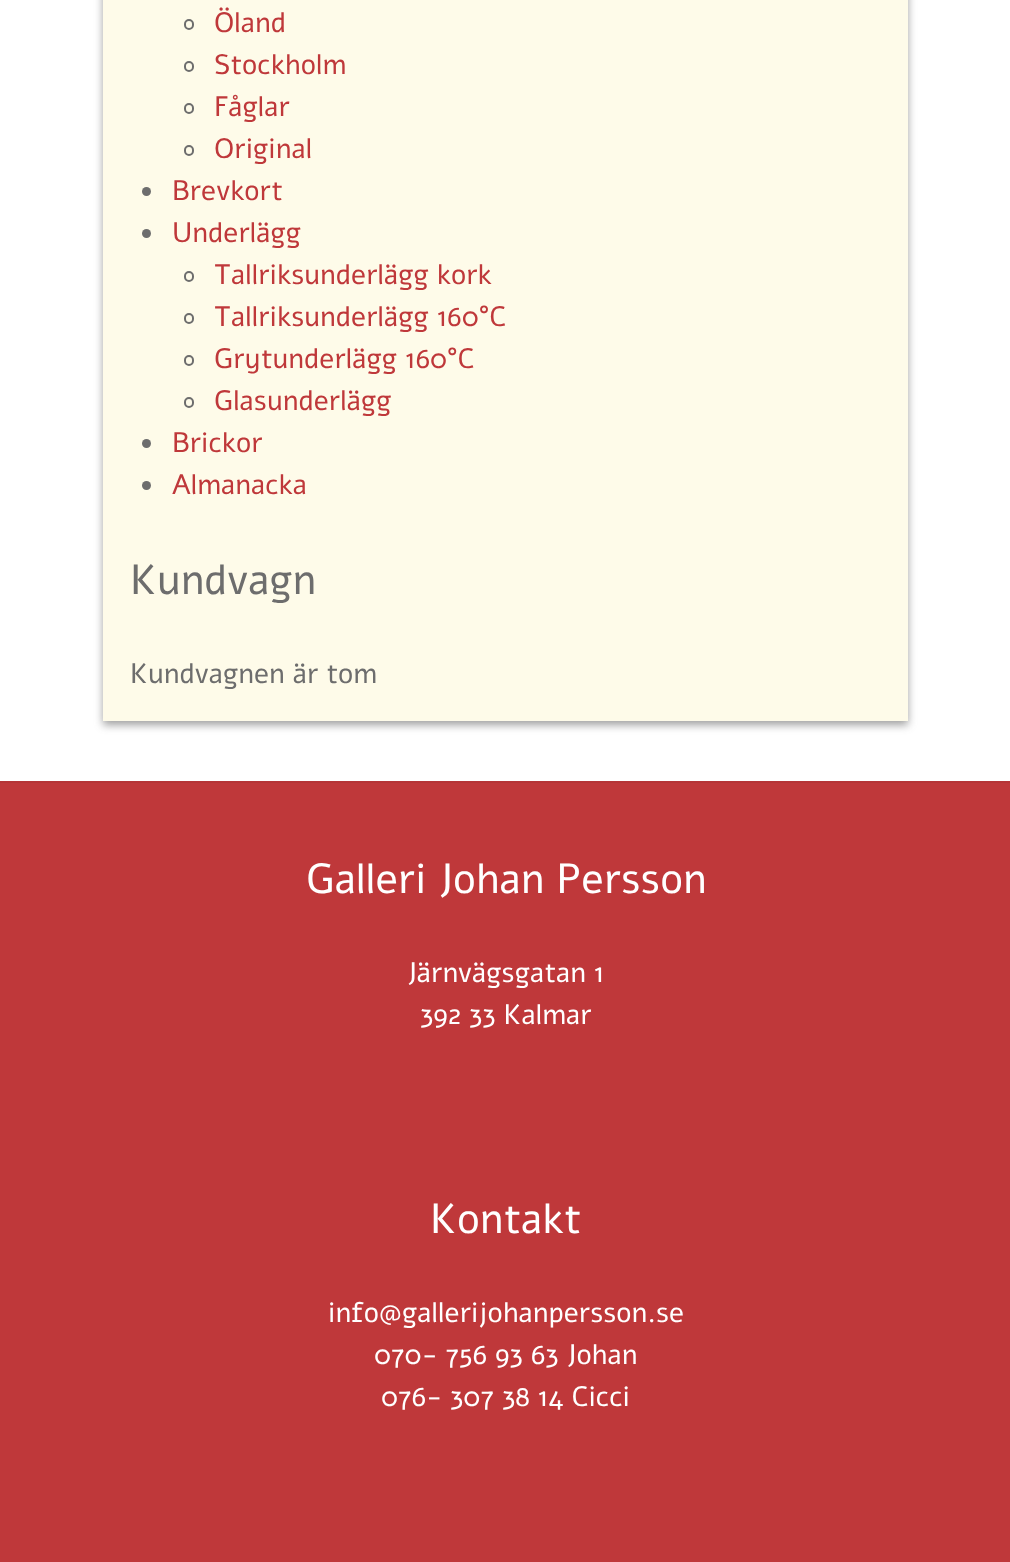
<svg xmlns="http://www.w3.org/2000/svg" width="1010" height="1562">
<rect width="100%" height="100%" fill="#fff"/>
<rect x="103" y="-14" width="805" height="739" fill="#40404080" filter="blur(4.5px)"/>
<rect x="103" width="805" height="721" fill="#fefbe9"/>
<rect x="185" y="20" width="8" height="9" rx="4" fill="none" stroke="#6d6d6d" stroke-width="2"/>
<text x="214" y="32" style="font-family:Alef;font-size:28px;fill:#bf383a">Öland</text>
<rect x="185" y="62" width="8" height="9" rx="4" fill="none" stroke="#6d6d6d" stroke-width="2"/>
<text x="214" y="74" style="font-family:Alef;font-size:28px;fill:#bf383a">Stockholm</text>
<rect x="185" y="104" width="8" height="9" rx="4" fill="none" stroke="#6d6d6d" stroke-width="2"/>
<text x="214" y="116" style="font-family:Alef;font-size:28px;fill:#bf383a">Fåglar</text>
<rect x="185" y="146" width="8" height="9" rx="4" fill="none" stroke="#6d6d6d" stroke-width="2"/>
<text x="214" y="158" style="font-family:Alef;font-size:28px;fill:#bf383a">Original</text>
<circle cx="146.5" cy="191.5" r="4.5" fill="#6d6d6d"/>
<text x="172" y="200" style="font-family:Alef;font-size:28px;fill:#bf383a">Brevkort</text>
<circle cx="146.5" cy="233.5" r="4.5" fill="#6d6d6d"/>
<text x="172" y="242" style="font-family:Alef;font-size:28px;fill:#bf383a">Underlägg</text>
<rect x="185" y="272" width="8" height="9" rx="4" fill="none" stroke="#6d6d6d" stroke-width="2"/>
<text x="214" y="284" style="font-family:Alef;font-size:28px;fill:#bf383a">Tallriksunderlägg kork</text>
<rect x="185" y="314" width="8" height="9" rx="4" fill="none" stroke="#6d6d6d" stroke-width="2"/>
<text x="214" y="326" style="font-family:Alef;font-size:28px;fill:#bf383a">Tallriksunderlägg 160°C</text>
<rect x="185" y="356" width="8" height="9" rx="4" fill="none" stroke="#6d6d6d" stroke-width="2"/>
<text x="214" y="368" style="font-family:Alef;font-size:28px;fill:#bf383a">Grytunderlägg 160°C</text>
<rect x="185" y="398" width="8" height="9" rx="4" fill="none" stroke="#6d6d6d" stroke-width="2"/>
<text x="214" y="410" style="font-family:Alef;font-size:28px;fill:#bf383a">Glasunderlägg</text>
<circle cx="146.5" cy="443.5" r="4.5" fill="#6d6d6d"/>
<text x="172" y="452" style="font-family:Alef;font-size:28px;fill:#bf383a">Brickor</text>
<circle cx="146.5" cy="485.5" r="4.5" fill="#6d6d6d"/>
<text x="172" y="494" style="font-family:Alef;font-size:28px;fill:#bf383a">Almanacka</text>
<text x="130" y="594" style="font-family:Alef;font-size:42px;fill:#6d6d6d">Kundvagn</text>
<text x="130" y="683" style="font-family:Alef;font-size:28px;fill:#6d6d6d">Kundvagnen är tom</text>
<rect y="783" width="1010" height="779" fill="#bf383a"/>
<rect y="781" width="1010" height="2" fill="#b53537"/>
<text x="306" y="893" style="font-family:Alef;font-size:42px;fill:#fff">Galleri Johan Persson</text>
<text x="407" y="982" style="font-family:Alef;font-size:28px;fill:#fff">Järnvägsgatan 1</text>
<text x="420" y="1024" style="font-family:Alef;font-size:28px;fill:#fff">392 33 Kalmar</text>
<text x="430" y="1233" style="font-family:Alef;font-size:42px;fill:#fff">Kontakt</text>
<text x="328" y="1322" style="font-family:Alef;font-size:28px;fill:#fff">info@gallerijohanpersson.se</text>
<text x="374" y="1364" style="font-family:Alef;font-size:28px;fill:#fff">070- 756 93 63 Johan</text>
<text x="381" y="1406" style="font-family:Alef;font-size:28px;fill:#fff">076- 307 38 14 Cicci</text>
</svg>
